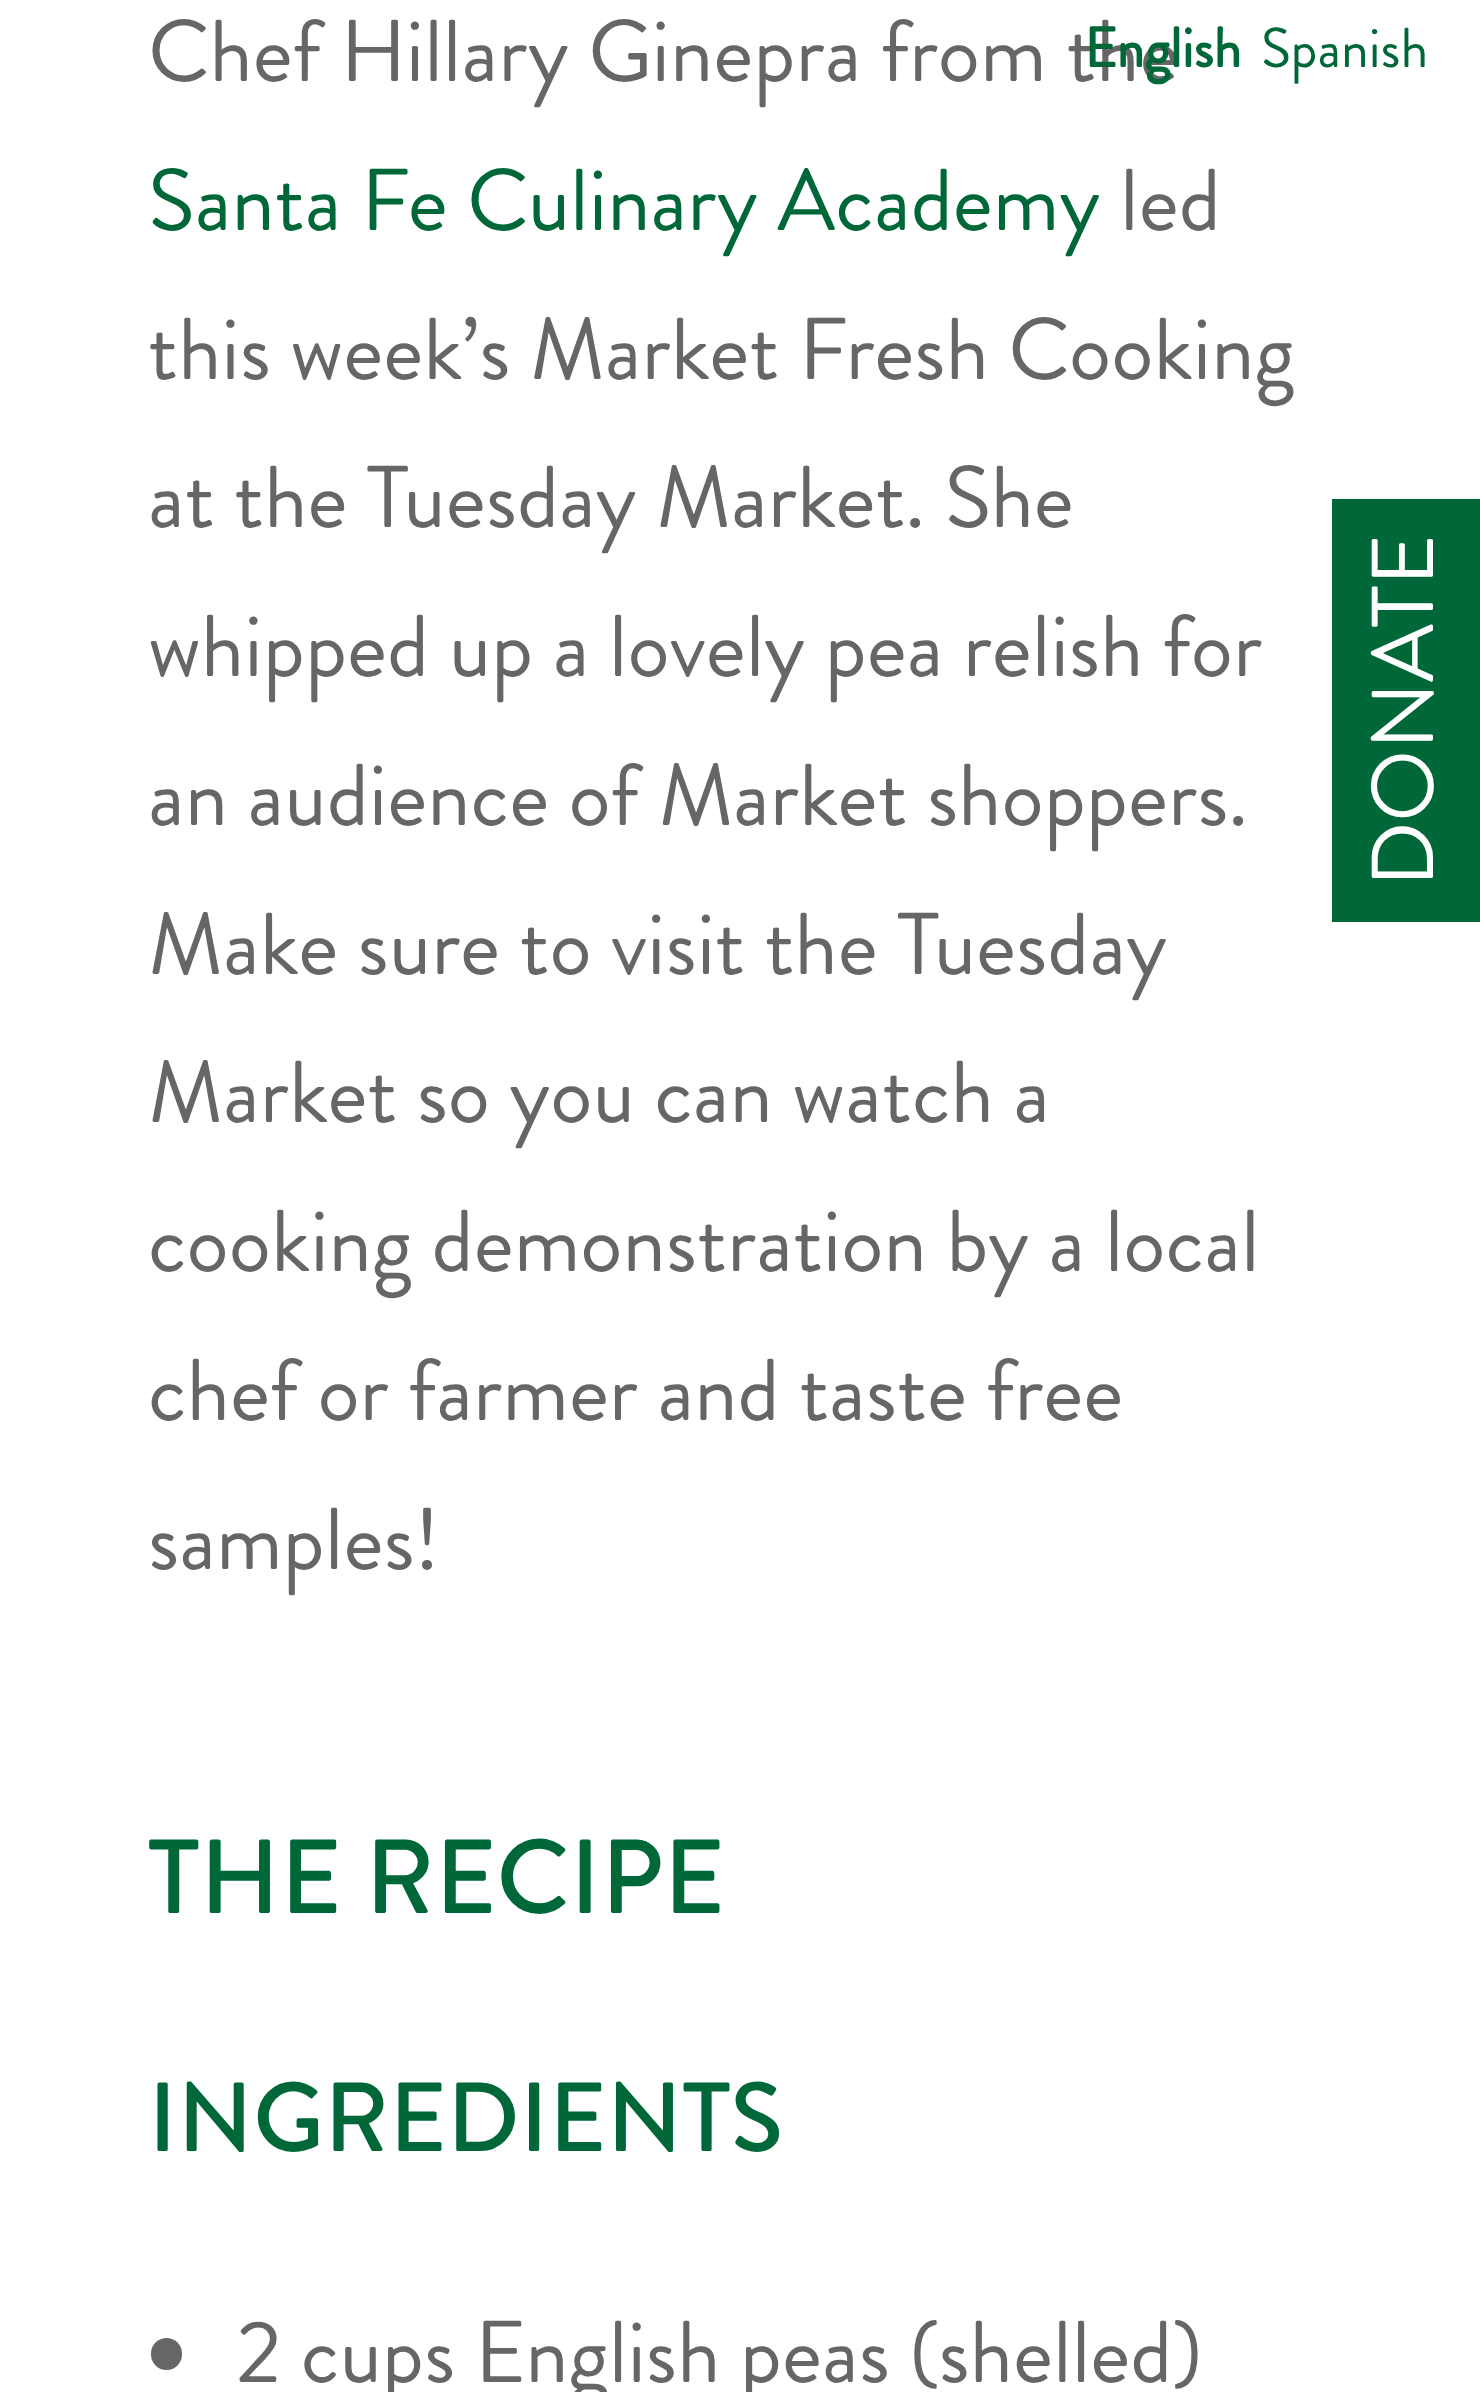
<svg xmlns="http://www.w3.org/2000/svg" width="1480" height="2392">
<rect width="100%" height="100%" fill="#fff"/>
<text x="148" y="81" style="font-family:Brandon Grotesque;font-size:87.5px;fill:#666">Chef Hillary Ginepra from the</text>
<text x="148" y="230" style="font-family:Brandon Grotesque;font-size:87.5px;fill:#006838">Santa Fe Culinary Academy</text>
<text x="1120" y="230" style="font-family:Brandon Grotesque;font-size:87.5px;fill:#666">led</text>
<text x="148" y="379" style="font-family:Brandon Grotesque;font-size:87.5px;fill:#666">this week’s Market Fresh Cooking</text>
<text x="148" y="527" style="font-family:Brandon Grotesque;font-size:87.5px;fill:#666">at the Tuesday Market. She</text>
<text x="148" y="676" style="font-family:Brandon Grotesque;font-size:87.5px;fill:#666">whipped up a lovely pea relish for</text>
<text x="148" y="825" style="font-family:Brandon Grotesque;font-size:87.5px;fill:#666">an audience of Market shoppers.</text>
<text x="148" y="974" style="font-family:Brandon Grotesque;font-size:87.5px;fill:#666">Make sure to visit the Tuesday</text>
<text x="148" y="1122" style="font-family:Brandon Grotesque;font-size:87.5px;fill:#666">Market so you can watch a</text>
<text x="148" y="1271" style="font-family:Brandon Grotesque;font-size:87.5px;fill:#666">cooking demonstration by a local</text>
<text x="148" y="1420" style="font-family:Brandon Grotesque;font-size:87.5px;fill:#666">chef or farmer and taste free</text>
<text x="148" y="1569" style="font-family:Brandon Grotesque;font-size:87.5px;fill:#666">samples!</text>
<text x="148" y="1913" style="font-family:Brandon Grotesque;font-size:105px;font-weight:500;fill:#006838">THE RECIPE</text>
<text x="148" y="2151" style="font-family:Brandon Grotesque;font-size:98px;font-weight:500;fill:#006838">INGREDIENTS</text>
<rect x="151" y="2338" width="31" height="32" rx="15.5" fill="#666"/>
<text x="236" y="2382" style="font-family:Brandon Grotesque;font-size:87.5px;fill:#666">2 cups English peas (shelled)</text>
<text x="1084" y="67" style="font-family:Brandon Grotesque;font-size:56px;font-weight:bold;fill:#006838">English</text>
<text x="1261" y="67" style="font-family:Brandon Grotesque;font-size:56px;fill:#006838">Spanish</text>
<rect x="1332" y="499" width="148" height="423" fill="#006838"/>
<text x="1433" y="887" transform="rotate(-90 1433 887)" style="font-family:Brandon Grotesque;font-size:87.5px;fill:#fff">DONATE</text>
</svg>
